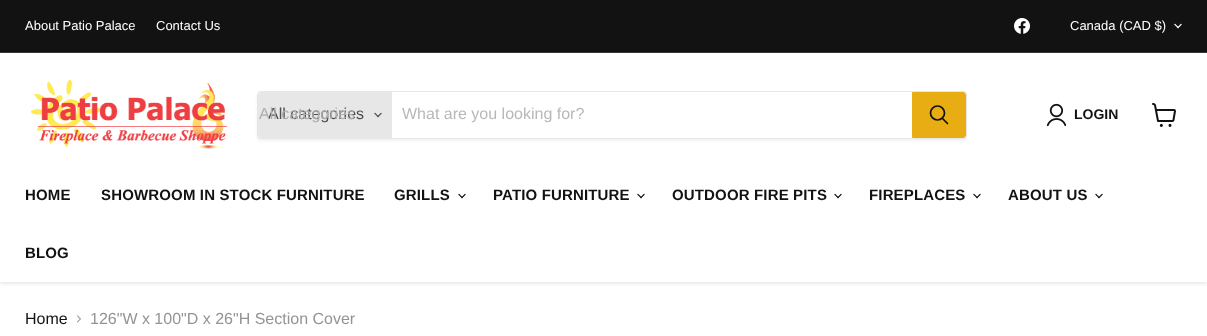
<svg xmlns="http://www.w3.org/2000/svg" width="1207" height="336">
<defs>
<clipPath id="clip1"><rect x="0" y="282" width="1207" height="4"/></clipPath>
<clipPath id="clip2"><path d="M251 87h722v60h-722zm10 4h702c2 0 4 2 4 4v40c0 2-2 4-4 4h-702c-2 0-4-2-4-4v-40c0-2 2-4 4-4z" clip-rule="evenodd"/></clipPath>
</defs>
<rect width="100%" height="100%" fill="#fff"/>
<g clip-path="url(#clip1)">
<rect y="54" width="1207" height="229" fill="#80808040" filter="blur(2px)"/>
</g>
<rect width="1207" height="52" fill="#121212"/>
<rect y="52" width="1207" height="1" fill="#353535"/>
<text x="25" y="30" style="font-family:Liberation Sans;font-size:13px;fill:#fff">About Patio Palace</text>
<text x="156" y="30" style="font-family:Liberation Sans;font-size:13px;fill:#fff">Contact Us</text>
<image x="1014" y="18" width="16" height="16" href="media/1.png"/>
<text x="1070" y="30" style="font-family:Liberation Sans;font-size:13px;fill:#fff">Canada (CAD $)</text>
<image x="1174" y="23" width="8" height="6" href="media/2.png"/>
<image x="31" y="80" width="196" height="69" href="media/3.png"/>
<g clip-path="url(#clip2)">
<rect x="257" y="93" width="710" height="48" rx="4" fill="#8080801c" filter="blur(1.5px)"/>
</g>
<rect x="257.5" y="91.5" width="709" height="47" rx="3.5" fill="none" stroke="#80808033"/>
<path d="M261 92h131v46h-131c-1.5 0-3-1.5-3-3v-40c0-1.5 1.5-3 3-3z" fill="#e7e7e7"/>
<text x="268" y="119" style="font-family:Liberation Sans;font-size:16px;fill:#4d4d4d">All categories</text>
<text x="259" y="119" style="font-family:Liberation Sans;font-size:16px;fill:#aeaeae">All categories</text>
<image x="374" y="112" width="8" height="6" href="media/4.png"/>
<text x="402" y="119" style="font-family:Liberation Sans;font-size:16px;fill:#b8b8b8">What are you looking for?</text>
<path d="M912.5 92.5h50.5c1.5 0 2.5 1 2.5 2.5v40c0 1.5-1 2.5-2.5 2.5h-50.5z" fill="#e9ad14" stroke="#e9ad14"/>
<path d="M947.5 123.5l-5-5" fill="none" stroke="#121212" stroke-width="1.7" stroke-linecap="round"/>
<circle cx="937.5" cy="113" r="7" fill="none" stroke="#121212" stroke-width="1.7"/>
<image x="1046" y="103" width="20" height="24" href="media/5.png"/>
<text x="1074" y="119" style="font-family:Liberation Sans;font-size:14px;font-weight:bold;fill:#121212">LOGIN</text>
<image x="1152" y="103" width="24" height="24" href="media/6.png"/>
<text x="25" y="200" style="font-family:Liberation Sans;font-size:15px;font-weight:bold;letter-spacing:0.15px;fill:#121212">HOME</text>
<text x="101" y="200" style="font-family:Liberation Sans;font-size:15px;font-weight:bold;letter-spacing:0.15px;fill:#121212">SHOWROOM IN STOCK FURNITURE</text>
<text x="394" y="200" style="font-family:Liberation Sans;font-size:15px;font-weight:bold;letter-spacing:0.15px;fill:#121212">GRILLS</text>
<image x="458" y="193" width="8" height="6" href="media/7.png"/>
<text x="493" y="200" style="font-family:Liberation Sans;font-size:15px;font-weight:bold;letter-spacing:0.15px;fill:#121212">PATIO FURNITURE</text>
<image x="637" y="193" width="8" height="6" href="media/7.png"/>
<text x="672" y="200" style="font-family:Liberation Sans;font-size:15px;font-weight:bold;letter-spacing:0.15px;fill:#121212">OUTDOOR FIRE PITS</text>
<image x="834" y="193" width="8" height="6" href="media/7.png"/>
<text x="869" y="200" style="font-family:Liberation Sans;font-size:15px;font-weight:bold;letter-spacing:0.15px;fill:#121212">FIREPLACES</text>
<image x="973" y="193" width="8" height="6" href="media/7.png"/>
<text x="1008" y="200" style="font-family:Liberation Sans;font-size:15px;font-weight:bold;letter-spacing:0.15px;fill:#121212">ABOUT US</text>
<image x="1095" y="193" width="8" height="6" href="media/7.png"/>
<text x="25" y="258" style="font-family:Liberation Sans;font-size:15px;font-weight:bold;letter-spacing:0.15px;fill:#121212">BLOG</text>
<text x="25" y="324" style="font-family:Liberation Sans;font-size:16px;fill:#121212">Home</text>
<image x="76" y="315" width="5" height="8" href="media/8.png"/>
<text x="90" y="324" style="font-family:Liberation Sans;font-size:16px;fill:#949494">126"W x 100"D x 26"H Section Cover</text>
</svg>
